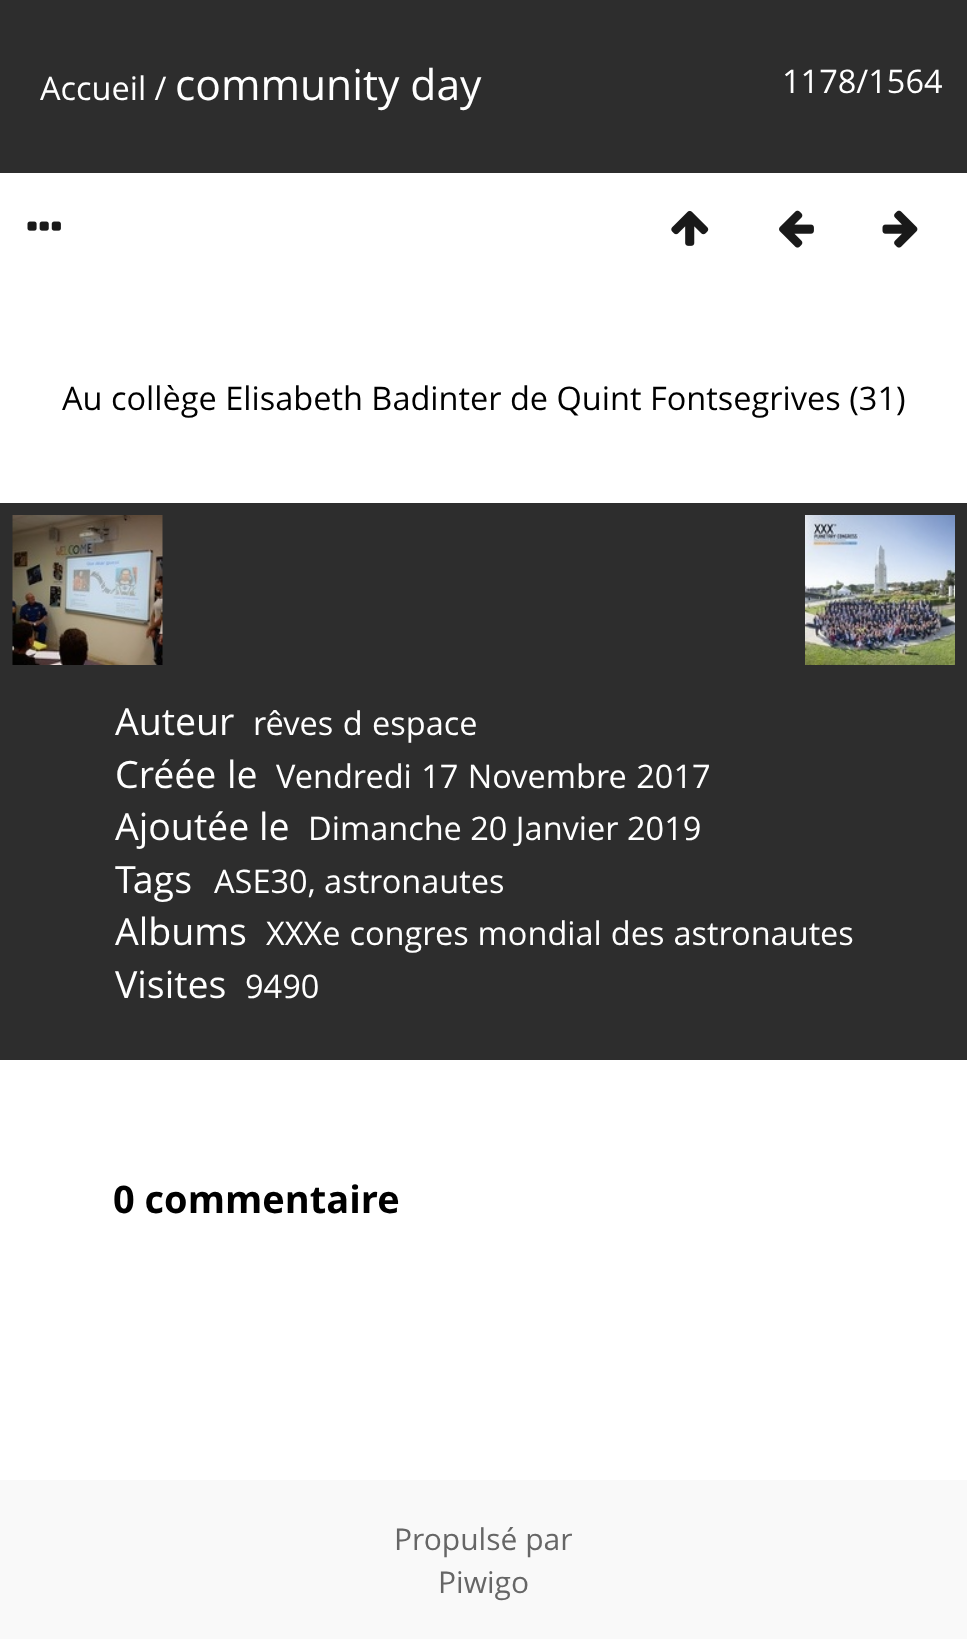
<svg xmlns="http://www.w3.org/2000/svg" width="967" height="1639">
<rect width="100%" height="100%" fill="#fff"/>
<rect width="967" height="173" fill="#2d2d2d"/>
<text x="40" y="100" style="font-family:Open Sans;font-size:32.5px;fill:#fff">Accueil /</text>
<text x="175" y="100" style="font-family:Open Sans;font-size:42.5px;fill:#fff">community day</text>
<text x="782" y="93" style="font-family:Open Sans;font-size:32.5px;fill:#fff">1178/1564</text>
<image x="27" y="221" width="34" height="10" href="media/1.png"/>
<image x="671" y="210" width="38" height="36" href="media/2.png"/>
<image x="779" y="210" width="35" height="38" href="media/3.png"/>
<image x="882" y="210" width="36" height="38" href="media/4.png"/>
<text x="62" y="410" style="font-family:Open Sans;font-size:32.5px;fill:#000">Au collège Elisabeth Badinter de Quint Fontsegrives (31)</text>
<rect y="503" width="967" height="557" fill="#2d2d2d"/>
<image x="12" y="515" width="151" height="150" href="media/5.png"/>
<image x="805" y="515" width="150" height="150" href="media/6.png"/>
<text x="115" y="735" style="font-family:Open Sans;font-size:37.5px;fill:#fff">Auteur</text>
<text x="253" y="735" word-spacing="1" style="font-family:Open Sans;font-size:32.5px;fill:#fff">rêves d espace</text>
<text x="115" y="788" word-spacing="1" style="font-family:Open Sans;font-size:37.5px;fill:#fff">Créée le</text>
<text x="276" y="788" word-spacing="1" style="font-family:Open Sans;font-size:32.5px;fill:#fff">Vendredi 17 Novembre 2017</text>
<text x="115" y="840" style="font-family:Open Sans;font-size:37.5px;fill:#fff">Ajoutée le</text>
<text x="308" y="840" style="font-family:Open Sans;font-size:32.5px;fill:#fff">Dimanche 20 Janvier 2019</text>
<text x="115" y="893" style="font-family:Open Sans;font-size:37.5px;fill:#fff">Tags</text>
<text x="214" y="893" style="font-family:Open Sans;font-size:32.5px;fill:#fff">ASE30, astronautes</text>
<text x="115" y="945" style="font-family:Open Sans;font-size:37.5px;fill:#fff">Albums</text>
<text x="266" y="945" word-spacing="0.5" style="font-family:Open Sans;font-size:32.5px;fill:#fff">XXXe congres mondial des astronautes</text>
<text x="115" y="998" style="font-family:Open Sans;font-size:37.5px;fill:#fff">Visites</text>
<text x="245" y="998" style="font-family:Open Sans;font-size:32.5px;fill:#fff">9490</text>
<text x="113" y="1213" style="font-family:Open Sans;font-size:38px;font-weight:bold;fill:#000">0 commentaire</text>
<rect y="1480" width="967" height="159" fill="#f9f9f9"/>
<text x="394" y="1550" style="font-family:Open Sans;font-size:30px;fill:#666">Propulsé par</text>
<text x="438" y="1593" style="font-family:Open Sans;font-size:30px;fill:#666">Piwigo</text>
</svg>
